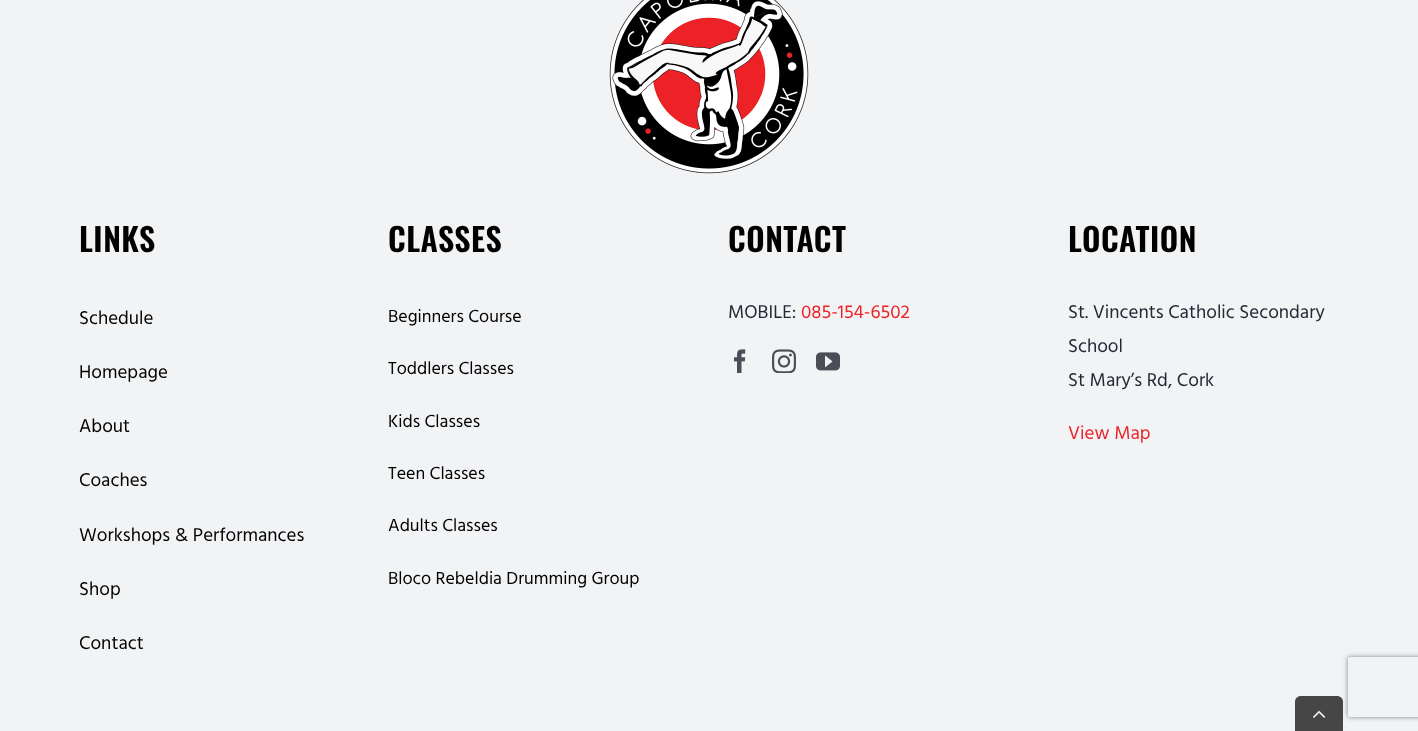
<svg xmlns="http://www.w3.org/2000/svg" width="1418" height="731">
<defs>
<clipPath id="clip1"><path d="M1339 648h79v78h-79zm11 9h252c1 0 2 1 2 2v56c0 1-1 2-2 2h-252c-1 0-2-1-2-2v-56c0-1 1-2 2-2z" clip-rule="evenodd"/></clipPath>
</defs>
<rect width="100%" height="100%" fill="#f2f3f5"/>
<image x="609" y="0" width="200" height="174" href="media/1.png"/>
<text x="79" y="252" style="font-family:Oswald;font-size:32px;font-weight:600;letter-spacing:0.5px;fill:#000">LINKS</text>
<text x="79" y="324" style="font-family:Hind;font-size:19px;fill:#000">Schedule</text>
<text x="79" y="378" style="font-family:Hind;font-size:19px;fill:#000">Homepage</text>
<text x="79" y="432" style="font-family:Hind;font-size:19px;fill:#000">About</text>
<text x="79" y="486" style="font-family:Hind;font-size:19px;fill:#000">Coaches</text>
<text x="79" y="541" style="font-family:Hind;font-size:19px;fill:#000">Workshops &amp; Performances</text>
<text x="79" y="595" style="font-family:Hind;font-size:19px;fill:#000">Shop</text>
<text x="79" y="649" style="font-family:Hind;font-size:19px;fill:#000">Contact</text>
<text x="388" y="252" style="font-family:Oswald;font-size:32px;font-weight:600;letter-spacing:0.5px;fill:#000">CLASSES</text>
<text x="388" y="322" style="font-family:Hind;font-size:18px;fill:#000">Beginners Course</text>
<text x="388" y="374" style="font-family:Hind;font-size:18px;fill:#000">Toddlers Classes</text>
<text x="388" y="427" style="font-family:Hind;font-size:18px;fill:#000">Kids Classes</text>
<text x="388" y="479" style="font-family:Hind;font-size:18px;fill:#000">Teen Classes</text>
<text x="388" y="531" style="font-family:Hind;font-size:18px;fill:#000">Adults Classes</text>
<text x="388" y="584" style="font-family:Hind;font-size:18px;fill:#000">Bloco Rebeldia Drumming Group</text>
<text x="728" y="252" style="font-family:Oswald;font-size:32px;font-weight:600;letter-spacing:0.5px;fill:#000">CONTACT</text>
<text x="728" y="318" style="font-family:Hind;font-size:19px;fill:#212934">MOBILE:</text>
<text x="801" y="318" style="font-family:Hind;font-size:19px;fill:#ec2227">085-154-6502</text>
<image x="734" y="349" width="12" height="24" href="media/2.png"/>
<image x="772" y="349" width="24" height="24" href="media/3.png"/>
<image x="816" y="352" width="24" height="19" href="media/4.png"/>
<text x="1068" y="252" style="font-family:Oswald;font-size:32px;font-weight:600;letter-spacing:0.5px;fill:#000">LOCATION</text>
<text x="1068" y="318" style="font-family:Hind;font-size:19px;fill:#212934">St. Vincents Catholic Secondary</text>
<text x="1068" y="352" style="font-family:Hind;font-size:19px;fill:#212934">School</text>
<text x="1068" y="386" style="font-family:Hind;font-size:19px;fill:#212934">St Mary’s Rd, Cork</text>
<text x="1068" y="439" style="font-family:Hind;font-size:19px;fill:#ec2227">View Map</text>
<g clip-path="url(#clip1)">
<rect x="1348" y="657" width="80" height="60" rx="2" fill="#808080" filter="blur(2.5px)"/>
</g>
<path d="M1301 696h36c3.5 0 6 2.5 6 6v29h-48v-29c0-3.5 2.5-6 6-6z" fill="#464646"/>
<image x="1313" y="710" width="13" height="8" href="media/5.png"/>
</svg>
